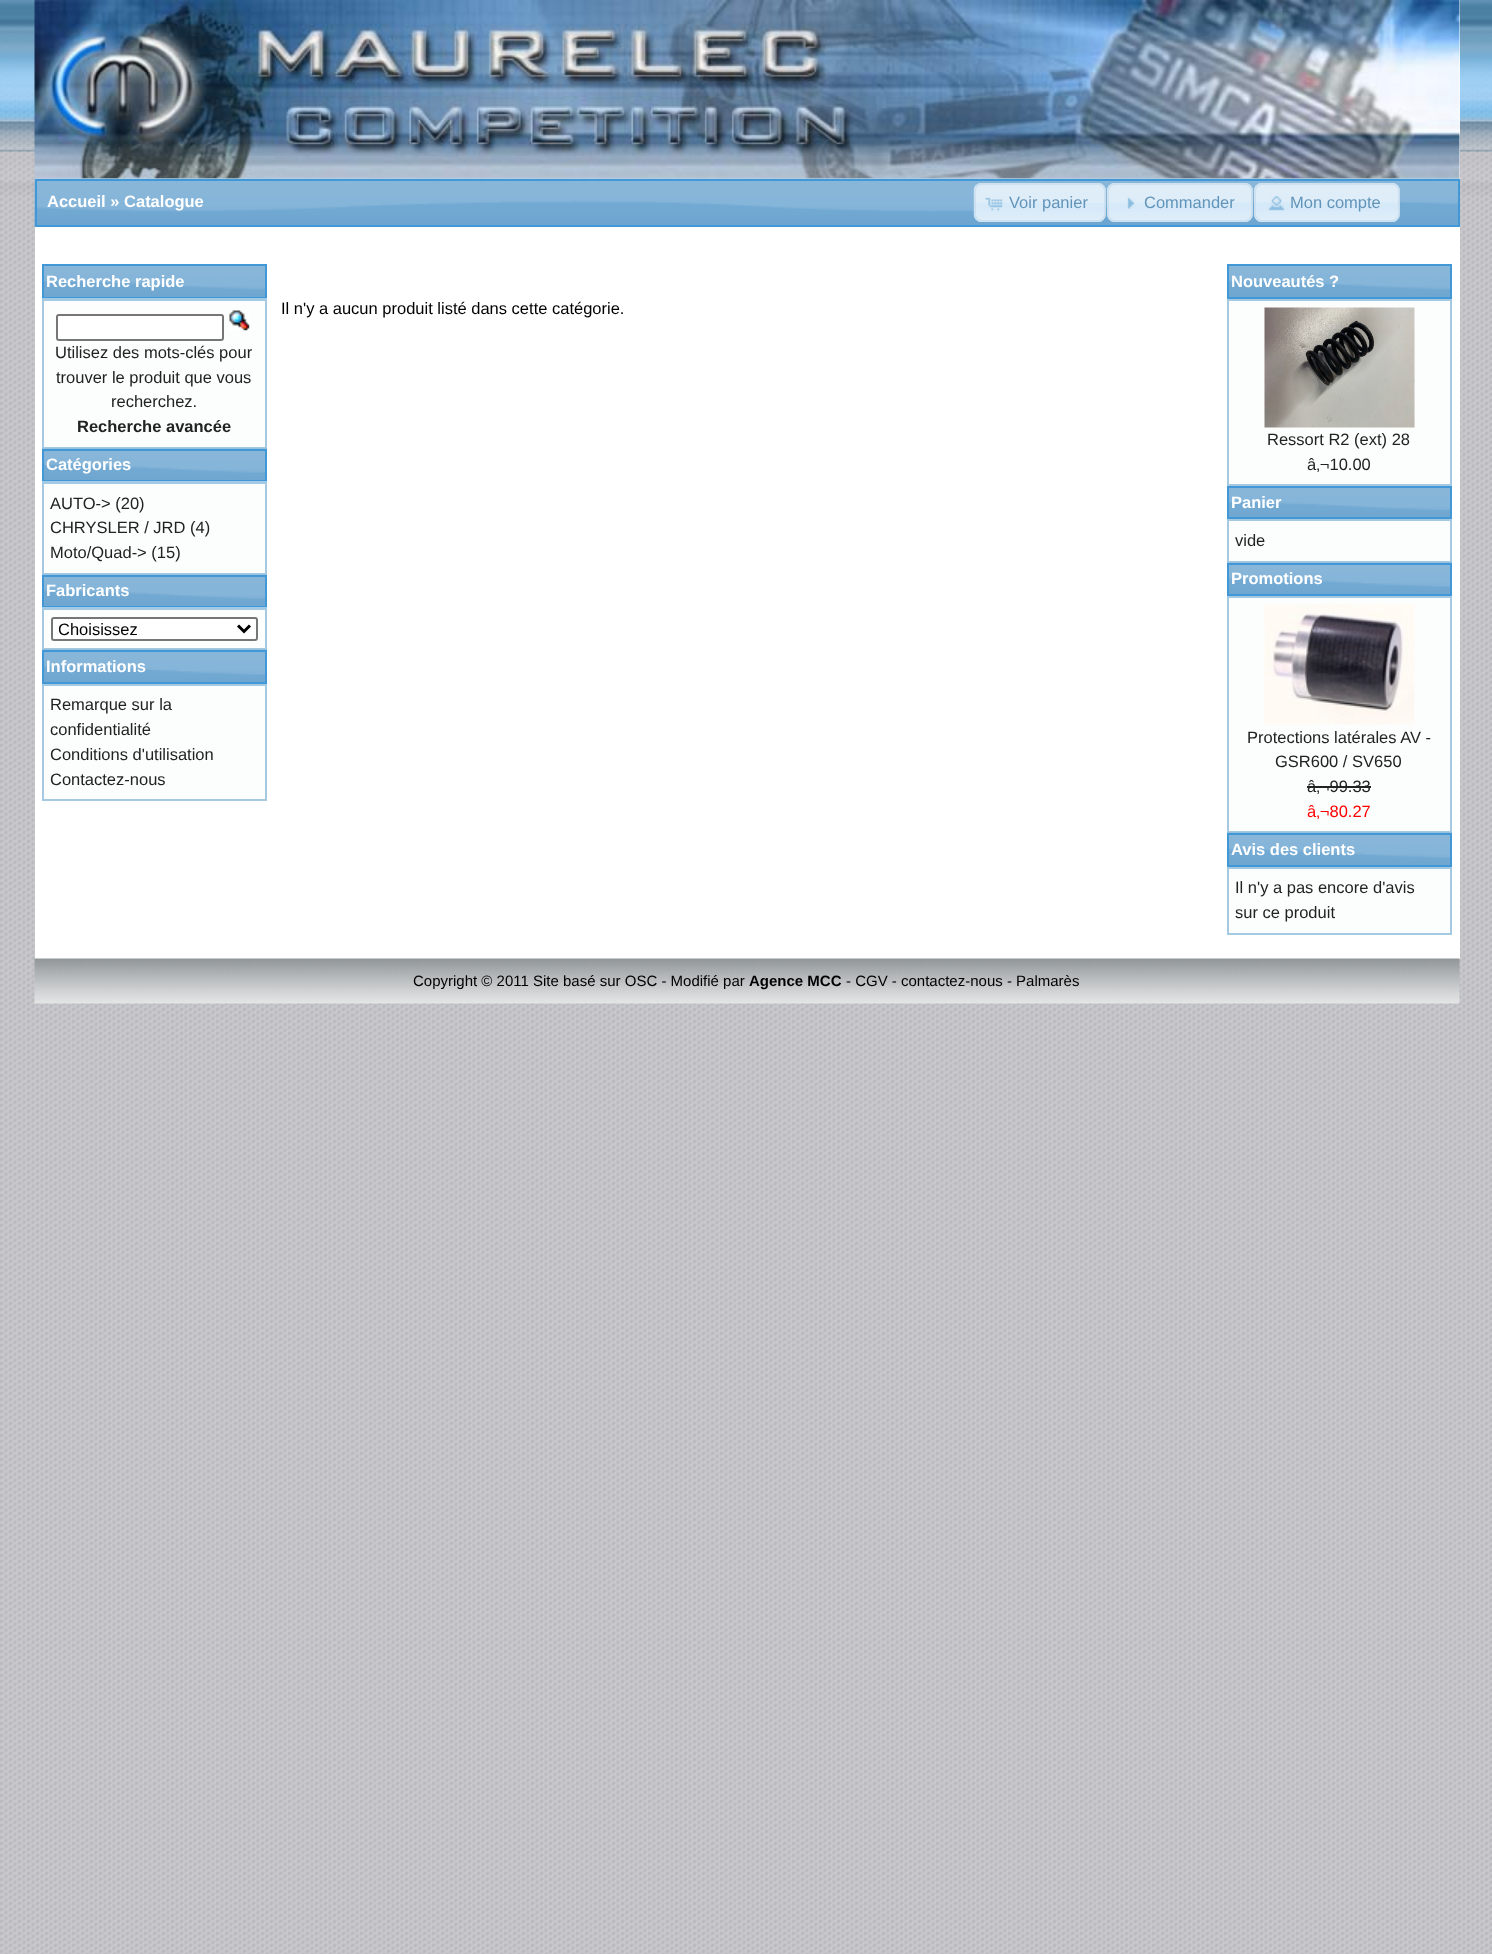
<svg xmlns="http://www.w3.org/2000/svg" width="1492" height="1954">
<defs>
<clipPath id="clip1"><rect x="59" y="618" width="174" height="21"/></clipPath>
</defs>
<rect width="100%" height="100%" fill="#fff"/>
<image x="0" y="0" width="1492" height="1954" href="media/1.png"/>
<rect x="35" width="1425" height="959" fill="#fff"/>
<image x="34" y="0" width="1426" height="179" href="media/2.png"/>
<image x="34" y="178" width="1426" height="49" href="media/3.png"/>
<rect x="36" y="180" width="1423" height="46" fill="none" stroke="#4297d7" stroke-width="2"/>
<text x="47" y="207" style="font-family:Liberation Sans;font-size:16.5px;font-weight:bold;fill:#fff">Accueil » Catalogue</text>
<rect x="974" y="183" width="132" height="39" rx="8" fill="#dfeffcb3"/>
<image x="973" y="183" width="133" height="39" href="media/4.png"/>
<rect x="975" y="184" width="130" height="37" rx="7" fill="none" stroke="#c5dbecb3" stroke-width="2"/>
<image x="985" y="197" width="18" height="14" href="media/5.png"/>
<text x="1009" y="208" style="font-family:Liberation Sans;font-size:16.5px;fill:#6294b9">Voir panier</text>
<rect x="1107" y="183" width="146" height="39" rx="8" fill="#dfeffcb3"/>
<image x="1107" y="183" width="146" height="39" href="media/6.png"/>
<rect x="1108" y="184" width="144" height="37" rx="7" fill="none" stroke="#c5dbecb3" stroke-width="2"/>
<image x="1127" y="197" width="8" height="12" href="media/7.png"/>
<text x="1144" y="208" style="font-family:Liberation Sans;font-size:16.5px;fill:#6294b9">Commander</text>
<rect x="1254" y="183" width="146" height="39" rx="8" fill="#dfeffcb3"/>
<image x="1254" y="183" width="146" height="39" href="media/8.png"/>
<rect x="1255" y="184" width="144" height="37" rx="7" fill="none" stroke="#c5dbecb3" stroke-width="2"/>
<image x="1268" y="196" width="17" height="15" href="media/9.png"/>
<text x="1290" y="208" style="font-family:Liberation Sans;font-size:16.5px;fill:#6294b9">Mon compte</text>
<image x="44" y="266" width="221" height="31" href="media/10.png"/>
<rect x="43" y="265" width="223" height="33" fill="none" stroke="#4297d7" stroke-width="2"/>
<text x="46" y="287" style="font-family:Liberation Sans;font-size:16.5px;font-weight:bold;fill:#fff">Recherche rapide</text>
<rect x="43" y="300" width="223" height="148" fill="#fcfdfd" stroke="#a6c9e2" stroke-width="2"/>
<rect x="42" y="298" width="225" height="1" fill="#9fcaea"/>
<rect x="57" y="315" width="166" height="25" rx="2" fill="#fff" stroke="#767676" stroke-width="2"/>
<image x="229" y="310" width="21" height="21" href="media/11.png"/>
<text x="55" y="358" style="font-family:Liberation Sans;font-size:16.5px;fill:#222">Utilisez des mots-clés pour</text>
<text x="56" y="383" style="font-family:Liberation Sans;font-size:16.5px;fill:#222">trouver le produit que vous</text>
<text x="111" y="407" style="font-family:Liberation Sans;font-size:16.5px;fill:#222">recherchez.</text>
<text x="77" y="432" style="font-family:Liberation Sans;font-size:16.5px;font-weight:bold;fill:#222">Recherche avancée</text>
<image x="42" y="448" width="225" height="32" href="media/12.png"/>
<rect x="43" y="450" width="223" height="31" fill="none" stroke="#4297d7" stroke-width="2"/>
<text x="46" y="470" style="font-family:Liberation Sans;font-size:16.5px;font-weight:bold;fill:#fff">Catégories</text>
<rect x="43" y="483" width="223" height="91" fill="#fcfdfd" stroke="#a6c9e2" stroke-width="2"/>
<rect x="42" y="481" width="225" height="1" fill="#9fcaea"/>
<text x="50" y="509" style="font-family:Liberation Sans;font-size:16.5px;fill:#222">AUTO-&gt; (20)</text>
<text x="50" y="533" style="font-family:Liberation Sans;font-size:16.5px;fill:#222">CHRYSLER / JRD (4)</text>
<text x="50" y="558" style="font-family:Liberation Sans;font-size:16.5px;fill:#222">Moto/Quad-&gt; (15)</text>
<image x="42" y="574" width="225" height="32" href="media/13.png"/>
<rect x="43" y="576" width="223" height="31" fill="none" stroke="#4297d7" stroke-width="2"/>
<text x="46" y="596" style="font-family:Liberation Sans;font-size:16.5px;font-weight:bold;fill:#fff">Fabricants</text>
<rect x="43" y="609" width="223" height="40" fill="#fcfdfd" stroke="#a6c9e2" stroke-width="2"/>
<rect x="42" y="607" width="225" height="1" fill="#a0caea"/>
<rect x="52" y="618" width="205" height="22" rx="2" fill="#fff" stroke="#767676" stroke-width="2"/>
<path d="M238 625.5l6 6l6-6" fill="none" stroke="#000" stroke-width="3"/>
<g clip-path="url(#clip1)">
<text x="58" y="635" style="font-family:Liberation Sans;font-size:16.5px;fill:#000">Choisissez</text>
</g>
<image x="42" y="649" width="225" height="33" href="media/14.png"/>
<rect x="43" y="651" width="223" height="32" fill="none" stroke="#4297d7" stroke-width="2"/>
<text x="46" y="672" style="font-family:Liberation Sans;font-size:16.5px;font-weight:bold;fill:#fff">Informations</text>
<rect x="43" y="685" width="223" height="115" fill="#fcfdfd" stroke="#a6c9e2" stroke-width="2"/>
<text x="50" y="710" style="font-family:Liberation Sans;font-size:16.5px;fill:#222">Remarque sur la</text>
<text x="50" y="735" style="font-family:Liberation Sans;font-size:16.5px;fill:#222">confidentialité</text>
<text x="50" y="760" style="font-family:Liberation Sans;font-size:16.5px;fill:#222">Conditions d'utilisation</text>
<text x="50" y="785" style="font-family:Liberation Sans;font-size:16.5px;fill:#222">Contactez-nous</text>
<text x="281" y="314" style="font-family:Liberation Sans;font-size:16.5px;fill:#000">Il n'y a aucun produit listé dans cette catégorie.</text>
<image x="1229" y="266" width="221" height="31" href="media/15.png"/>
<rect x="1228" y="265" width="223" height="33" fill="none" stroke="#4297d7" stroke-width="2"/>
<text x="1231" y="287" style="font-family:Liberation Sans;font-size:16.5px;font-weight:bold;fill:#fff">Nouveautés ?</text>
<rect x="1228" y="300" width="223" height="185" fill="#fcfdfd" stroke="#a6c9e2" stroke-width="2"/>
<image x="1264" y="307" width="151" height="121" href="media/16.png"/>
<text x="1267" y="445" style="font-family:Liberation Sans;font-size:16.5px;fill:#222">Ressort R2 (ext) 28</text>
<text x="1307" y="470" style="font-family:Liberation Sans;font-size:16.5px;fill:#222">â‚¬10.00</text>
<image x="1229" y="488" width="221" height="29" href="media/17.png"/>
<rect x="1228" y="487" width="223" height="31" fill="none" stroke="#4297d7" stroke-width="2"/>
<text x="1231" y="508" style="font-family:Liberation Sans;font-size:16.5px;font-weight:bold;fill:#fff">Panier</text>
<rect x="1228" y="520" width="223" height="42" fill="#fcfdfd" stroke="#a6c9e2" stroke-width="2"/>
<text x="1235" y="546" style="font-family:Liberation Sans;font-size:16.5px;fill:#222">vide</text>
<image x="1227" y="562" width="225" height="32" href="media/13.png"/>
<rect x="1228" y="564" width="223" height="31" fill="none" stroke="#4297d7" stroke-width="2"/>
<text x="1231" y="584" style="font-family:Liberation Sans;font-size:16.5px;font-weight:bold;fill:#fff">Promotions</text>
<rect x="1228" y="597" width="223" height="235" fill="#fcfdfd" stroke="#a6c9e2" stroke-width="2"/>
<image x="1264" y="604" width="151" height="121" href="media/18.png"/>
<text x="1247" y="743" style="font-family:Liberation Sans;font-size:16.5px;fill:#222">Protections latérales AV -</text>
<text x="1275" y="767" style="font-family:Liberation Sans;font-size:16.5px;fill:#222">GSR600 / SV650</text>
<text x="1307" y="792" style="font-family:Liberation Sans;font-size:16.5px;fill:#222">â‚¬99.33</text>
<rect x="1307" y="786" width="64" height="2" fill="#222"/>
<text x="1307" y="817" style="font-family:Liberation Sans;font-size:16.5px;fill:#f00">â‚¬80.27</text>
<image x="1227" y="832" width="225" height="33" href="media/14.png"/>
<rect x="1228" y="834" width="223" height="32" fill="none" stroke="#4297d7" stroke-width="2"/>
<text x="1231" y="855" style="font-family:Liberation Sans;font-size:16.5px;font-weight:bold;fill:#fff">Avis des clients</text>
<rect x="1228" y="868" width="223" height="66" fill="#fcfdfd" stroke="#a6c9e2" stroke-width="2"/>
<text x="1235" y="893" style="font-family:Liberation Sans;font-size:16.5px;fill:#222">Il n'y a pas encore d'avis</text>
<text x="1235" y="918" style="font-family:Liberation Sans;font-size:16.5px;fill:#222">sur ce produit</text>
<image x="34" y="958" width="1426" height="46" href="media/19.png"/>
<text x="413" y="986" style="font-family:Liberation Sans;font-size:15px;fill:#000">Copyright © 2011 Site basé sur OSC - Modifié par</text>
<text x="749" y="986" style="font-family:Liberation Sans;font-size:15px;font-weight:bold;fill:#000">Agence MCC</text>
<text x="846" y="986" style="font-family:Liberation Sans;font-size:15px;fill:#000">- CGV - contactez-nous - Palmarès</text>
</svg>
